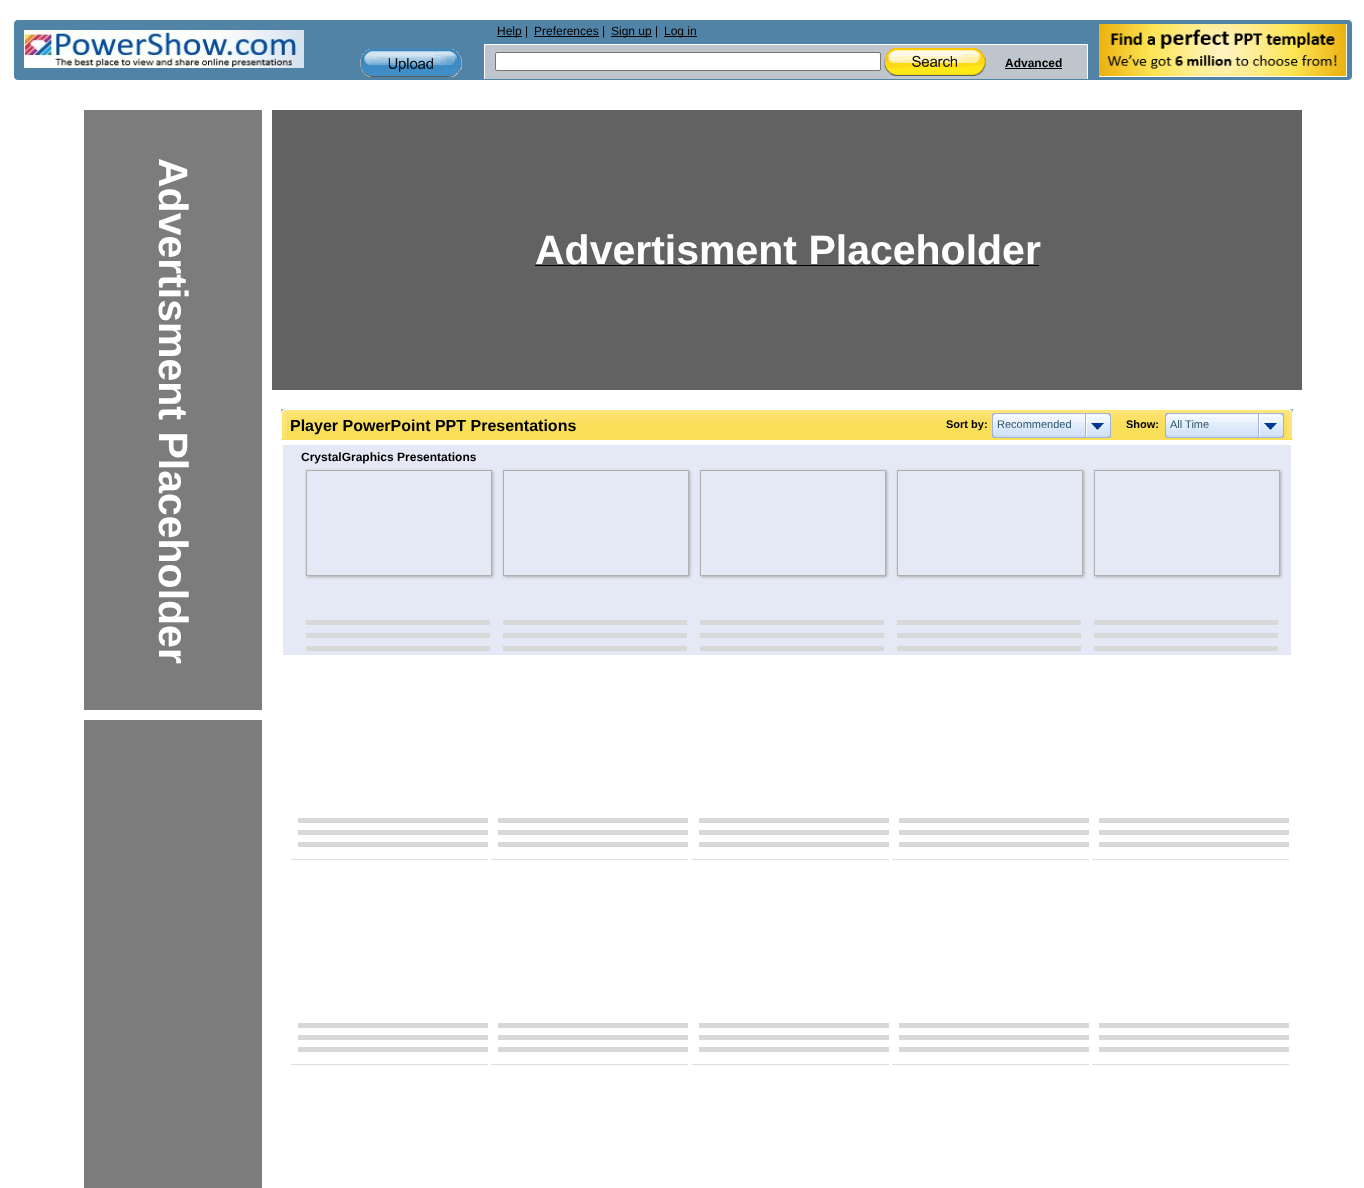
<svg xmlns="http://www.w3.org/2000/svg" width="1364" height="1188">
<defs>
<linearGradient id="g1" gradientUnits="userSpaceOnUse" x1="787" y1="410" x2="787" y2="440"><stop offset="0" stop-color="#ffe67b"/><stop offset="0.37" stop-color="#fadf5f"/><stop offset="0.53" stop-color="#f9de5a"/><stop offset="1" stop-color="#f9de5a"/></linearGradient>
<clipPath id="clip1"><path d="M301 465h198v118h-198zm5 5h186v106h-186z" clip-rule="evenodd"/></clipPath>
<clipPath id="clip2"><path d="M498 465h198v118h-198zm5 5h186v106h-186z" clip-rule="evenodd"/></clipPath>
<clipPath id="clip3"><path d="M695 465h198v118h-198zm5 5h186v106h-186z" clip-rule="evenodd"/></clipPath>
<clipPath id="clip4"><path d="M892 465h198v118h-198zm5 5h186v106h-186z" clip-rule="evenodd"/></clipPath>
<clipPath id="clip5"><path d="M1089 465h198v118h-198zm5 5h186v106h-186z" clip-rule="evenodd"/></clipPath>
</defs>
<rect width="100%" height="100%" fill="#fff"/>
<rect x="13.5" y="19.5" width="1339" height="61" rx="4.5" fill="#5183a6" stroke="#fff"/>
<image x="24" y="30" width="280" height="38" href="media/1.png"/>
<image x="360" y="49" width="102" height="28" href="media/2.png"/>
<rect x="497" y="36" width="25" height="1" fill="#000"/>
<text x="497" y="35" style="font-family:Liberation Sans;font-size:12px;fill:#000">Help |</text>
<rect x="534" y="36" width="65" height="1" fill="#000"/>
<text x="534" y="35" style="font-family:Liberation Sans;font-size:12px;fill:#000">Preferences |</text>
<rect x="611" y="36" width="41" height="1" fill="#000"/>
<text x="611" y="35" style="font-family:Liberation Sans;font-size:12px;fill:#000">Sign up |</text>
<rect x="664" y="36" width="33" height="1" fill="#000"/>
<text x="664" y="35" style="font-family:Liberation Sans;font-size:12px;fill:#000">Log in</text>
<rect x="485" y="45" width="602" height="34" fill="#bfc5cd"/>
<rect x="1087" y="44" width="1" height="35" fill="#fff"/>
<rect x="484" y="44" width="1" height="35" fill="#fff"/>
<rect x="485" y="44" width="602" height="1" fill="#fff"/>
<rect x="495.5" y="52.5" width="385" height="18" rx="1.5" fill="#fff" stroke="#767676"/>
<image x="884" y="48" width="102" height="28" href="media/3.png"/>
<text x="1005" y="67" style="font-family:Liberation Sans;font-size:12px;font-weight:bold;fill:#000">Advanced</text>
<rect x="1005" y="68" width="57" height="1" fill="#000"/>
<image x="1099" y="24" width="248" height="53" href="media/4.png"/>
<rect x="84" y="110" width="178" height="600" fill="#7c7c7c"/>
<text x="159" y="158" transform="rotate(90 159 158)" style="font-family:Liberation Sans;font-size:41px;font-weight:bold;fill:#fff">Advertisment Placeholder</text>
<rect x="84" y="720" width="178" height="468" fill="#7c7c7c"/>
<rect x="272" y="110" width="1030" height="280" fill="#626262"/>
<text x="535" y="264" style="font-family:Liberation Sans;font-size:41px;font-weight:bold;fill:#fff">Advertisment Placeholder</text>
<rect x="535" y="265" width="504" height="1" fill="#000"/>
<rect x="281" y="410" width="1012" height="30" fill="url(#g1)"/>
<image x="281" y="409" width="6" height="30" href="media/5.png"/>
<text x="290" y="431" style="font-family:Liberation Sans;font-size:16px;font-weight:bold;fill:#000">Player PowerPoint PPT Presentations</text>
<text x="946" y="428" style="font-family:Liberation Sans;font-size:11px;font-weight:bold;fill:#000">Sort by:</text>
<image x="992" y="413" width="94" height="25" href="media/6.png"/>
<text x="997" y="428" style="font-family:Liberation Sans;font-size:11px;fill:#2c556f">Recommended</text>
<image x="1086" y="413" width="25" height="25" href="media/7.png"/>
<text x="1126" y="428" style="font-family:Liberation Sans;font-size:11px;font-weight:bold;fill:#000">Show:</text>
<image x="1165" y="413" width="94" height="25" href="media/6.png"/>
<text x="1170" y="428" style="font-family:Liberation Sans;font-size:11px;fill:#2c556f">All Time</text>
<image x="1259" y="413" width="25" height="25" href="media/7.png"/>
<image x="1287" y="409" width="6" height="30" href="media/8.png"/>
<rect x="283" y="445" width="1008" height="210" fill="#e5e9f5"/>
<text x="301" y="461" style="font-family:Liberation Sans;font-size:12px;font-weight:bold;fill:#000">CrystalGraphics Presentations</text>
<g clip-path="url(#clip1)">
<rect x="307" y="471" width="186" height="106" fill="#aaa" filter="blur(1.5px)"/>
</g>
<rect x="306.5" y="470.5" width="185" height="105" fill="none" stroke="#b0b0b0"/>
<rect x="306" y="620" width="184" height="5" fill="#d8d8d8"/>
<rect x="306" y="633" width="184" height="5" fill="#d8d8d8"/>
<rect x="306" y="646" width="184" height="5" fill="#d8d8d8"/>
<g clip-path="url(#clip2)">
<rect x="504" y="471" width="186" height="106" fill="#aaa" filter="blur(1.5px)"/>
</g>
<rect x="503.5" y="470.5" width="185" height="105" fill="none" stroke="#b0b0b0"/>
<rect x="503" y="620" width="184" height="5" fill="#d8d8d8"/>
<rect x="503" y="633" width="184" height="5" fill="#d8d8d8"/>
<rect x="503" y="646" width="184" height="5" fill="#d8d8d8"/>
<g clip-path="url(#clip3)">
<rect x="701" y="471" width="186" height="106" fill="#aaa" filter="blur(1.5px)"/>
</g>
<rect x="700.5" y="470.5" width="185" height="105" fill="none" stroke="#b0b0b0"/>
<rect x="700" y="620" width="184" height="5" fill="#d8d8d8"/>
<rect x="700" y="633" width="184" height="5" fill="#d8d8d8"/>
<rect x="700" y="646" width="184" height="5" fill="#d8d8d8"/>
<g clip-path="url(#clip4)">
<rect x="898" y="471" width="186" height="106" fill="#aaa" filter="blur(1.5px)"/>
</g>
<rect x="897.5" y="470.5" width="185" height="105" fill="none" stroke="#b0b0b0"/>
<rect x="897" y="620" width="184" height="5" fill="#d8d8d8"/>
<rect x="897" y="633" width="184" height="5" fill="#d8d8d8"/>
<rect x="897" y="646" width="184" height="5" fill="#d8d8d8"/>
<g clip-path="url(#clip5)">
<rect x="1095" y="471" width="186" height="106" fill="#aaa" filter="blur(1.5px)"/>
</g>
<rect x="1094.5" y="470.5" width="185" height="105" fill="none" stroke="#b0b0b0"/>
<rect x="1094" y="620" width="184" height="5" fill="#d8d8d8"/>
<rect x="1094" y="633" width="184" height="5" fill="#d8d8d8"/>
<rect x="1094" y="646" width="184" height="5" fill="#d8d8d8"/>
<rect x="291" y="859" width="197" height="1" fill="#ddd"/>
<rect x="298" y="818" width="190" height="5" fill="#d8d8d8"/>
<rect x="298" y="830" width="190" height="5" fill="#d8d8d8"/>
<rect x="298" y="842" width="190" height="5" fill="#d8d8d8"/>
<rect x="491" y="859" width="197" height="1" fill="#ddd"/>
<rect x="498" y="818" width="190" height="5" fill="#d8d8d8"/>
<rect x="498" y="830" width="190" height="5" fill="#d8d8d8"/>
<rect x="498" y="842" width="190" height="5" fill="#d8d8d8"/>
<rect x="692" y="859" width="197" height="1" fill="#ddd"/>
<rect x="699" y="818" width="190" height="5" fill="#d8d8d8"/>
<rect x="699" y="830" width="190" height="5" fill="#d8d8d8"/>
<rect x="699" y="842" width="190" height="5" fill="#d8d8d8"/>
<rect x="892" y="859" width="197" height="1" fill="#ddd"/>
<rect x="899" y="818" width="190" height="5" fill="#d8d8d8"/>
<rect x="899" y="830" width="190" height="5" fill="#d8d8d8"/>
<rect x="899" y="842" width="190" height="5" fill="#d8d8d8"/>
<rect x="1092" y="859" width="197" height="1" fill="#ddd"/>
<rect x="1099" y="818" width="190" height="5" fill="#d8d8d8"/>
<rect x="1099" y="830" width="190" height="5" fill="#d8d8d8"/>
<rect x="1099" y="842" width="190" height="5" fill="#d8d8d8"/>
<rect x="291" y="1064" width="197" height="1" fill="#ddd"/>
<rect x="298" y="1023" width="190" height="5" fill="#d8d8d8"/>
<rect x="298" y="1035" width="190" height="5" fill="#d8d8d8"/>
<rect x="298" y="1047" width="190" height="5" fill="#d8d8d8"/>
<rect x="491" y="1064" width="197" height="1" fill="#ddd"/>
<rect x="498" y="1023" width="190" height="5" fill="#d8d8d8"/>
<rect x="498" y="1035" width="190" height="5" fill="#d8d8d8"/>
<rect x="498" y="1047" width="190" height="5" fill="#d8d8d8"/>
<rect x="692" y="1064" width="197" height="1" fill="#ddd"/>
<rect x="699" y="1023" width="190" height="5" fill="#d8d8d8"/>
<rect x="699" y="1035" width="190" height="5" fill="#d8d8d8"/>
<rect x="699" y="1047" width="190" height="5" fill="#d8d8d8"/>
<rect x="892" y="1064" width="197" height="1" fill="#ddd"/>
<rect x="899" y="1023" width="190" height="5" fill="#d8d8d8"/>
<rect x="899" y="1035" width="190" height="5" fill="#d8d8d8"/>
<rect x="899" y="1047" width="190" height="5" fill="#d8d8d8"/>
<rect x="1092" y="1064" width="197" height="1" fill="#ddd"/>
<rect x="1099" y="1023" width="190" height="5" fill="#d8d8d8"/>
<rect x="1099" y="1035" width="190" height="5" fill="#d8d8d8"/>
<rect x="1099" y="1047" width="190" height="5" fill="#d8d8d8"/>
</svg>
